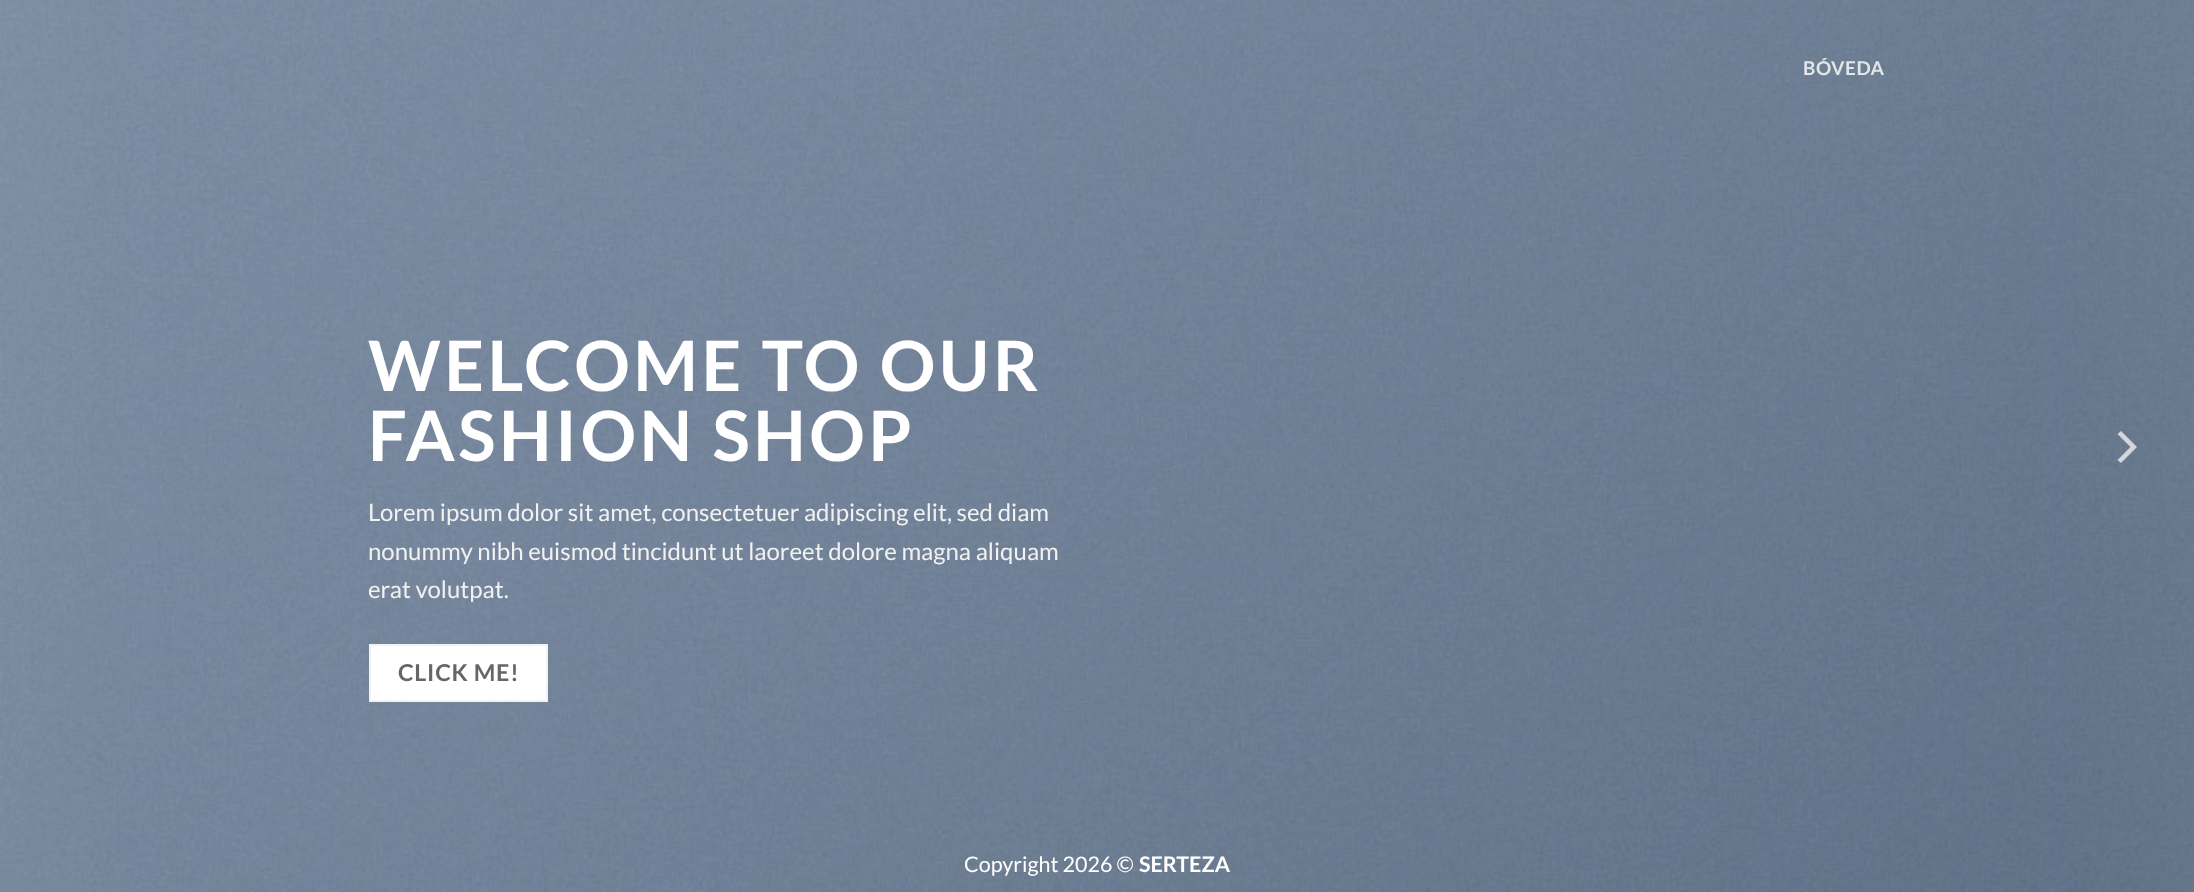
<svg xmlns="http://www.w3.org/2000/svg" width="2194" height="892">
<rect width="100%" height="100%" fill="#fff"/>
<image x="0" y="0" width="2194" height="892" href="media/1.png"/>
<text x="1803" y="75" style="font-family:Lato;font-size:19px;font-weight:bold;letter-spacing:0.5px;fill:#e2e5e9">BÓVEDA</text>
<text x="368" y="391" style="font-family:Lato;font-size:69.5px;font-weight:bold;letter-spacing:3.5px;fill:#fff">WELCOME TO OUR</text>
<text x="368" y="461" style="font-family:Lato;font-size:69.5px;font-weight:bold;letter-spacing:3.5px;fill:#fff">FASHION SHOP</text>
<text x="368" y="521" style="font-family:Lato;font-size:24px;fill:#f1f1f1">Lorem ipsum dolor sit amet, consectetuer adipiscing elit, sed diam</text>
<text x="368" y="560" style="font-family:Lato;font-size:24px;fill:#f1f1f1">nonummy nibh euismod tincidunt ut laoreet dolore magna aliquam</text>
<text x="368" y="598" style="font-family:Lato;font-size:24px;fill:#f1f1f1">erat volutpat.</text>
<rect x="370" y="645" width="177" height="56" fill="#fff" stroke="#f2f2f2" stroke-width="2"/>
<text x="398" y="681" style="font-family:Lato;font-size:23.25px;font-weight:bold;letter-spacing:0.75px;fill:#666">CLICK ME!</text>
<path d="M2137 447l-16-16l-3.5 3l13 13l-13 13l3.5 3z" fill="#ffffffb3"/>
<text x="964" y="872" style="font-family:Lato;font-size:21.5px;fill:#fff">Copyright 2026 ©</text>
<text x="1139" y="872" style="font-family:Lato;font-size:21.5px;font-weight:bold;fill:#fff">SERTEZA</text>
</svg>
